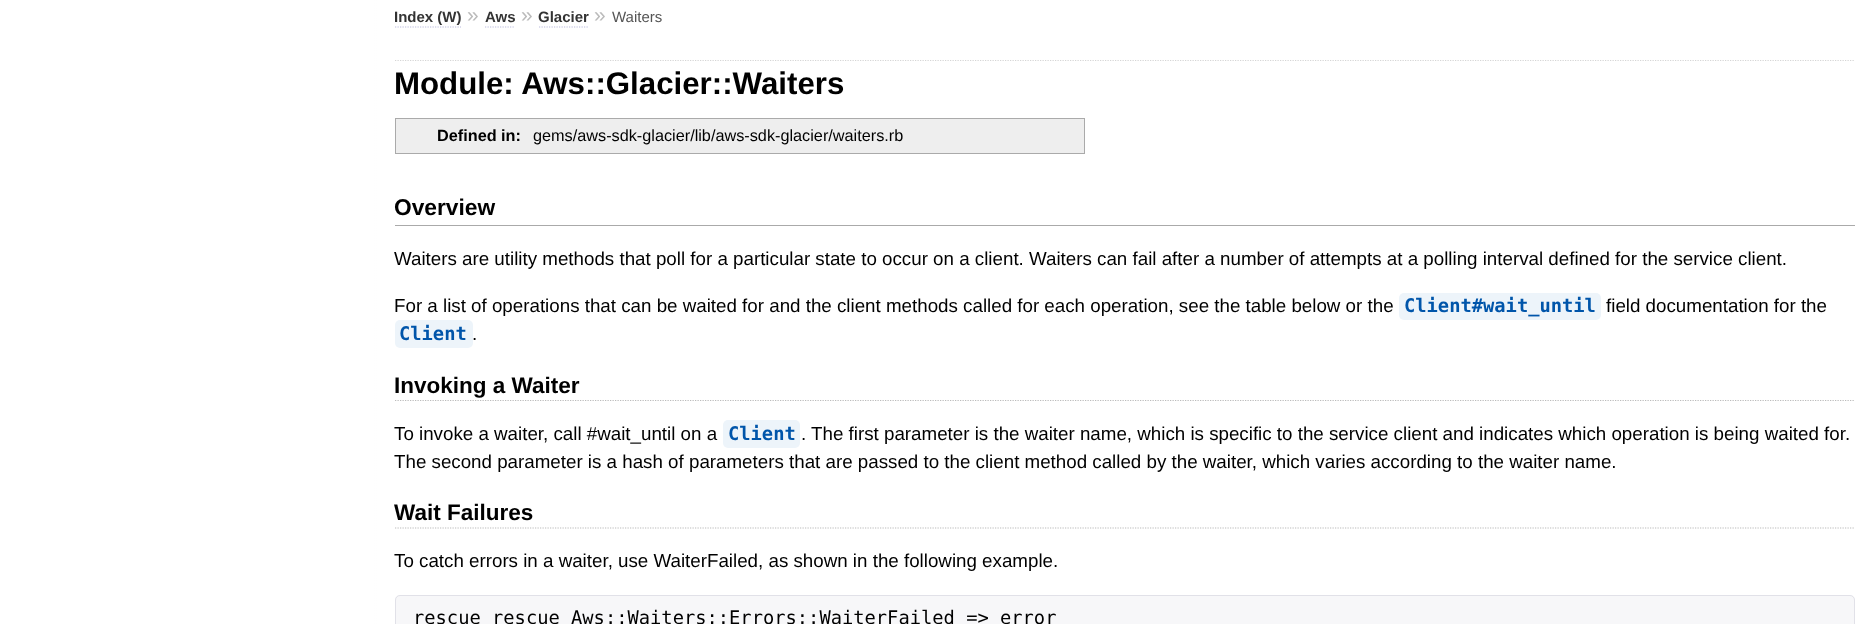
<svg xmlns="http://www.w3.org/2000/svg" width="1874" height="624">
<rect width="100%" height="100%" fill="#fff"/>
<path d="M375.5 0v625" fill="none" stroke="#eee" stroke-width="1.2" stroke-dasharray="1.25 1.25"/>
<rect x="375" width="1" height="624" fill="#fff"/>
<text x="394" y="22" style="font-family:Liberation Sans;font-size:15px;font-weight:bold;fill:#333">Index (W)</text>
<path d="M395 27h66" fill="none" stroke="#bbd" stroke-width="1.2" stroke-dasharray="1.25 1.25"/>
<text x="467" y="22" style="font-family:Liberation Sans;font-size:21px;fill:#bbb">»</text>
<text x="485" y="22" style="font-family:Liberation Sans;font-size:15px;font-weight:bold;fill:#333">Aws</text>
<path d="M485 27h30" fill="none" stroke="#bbd" stroke-width="1.2" stroke-dasharray="1.25 1.25"/>
<text x="521" y="22" style="font-family:Liberation Sans;font-size:21px;fill:#bbb">»</text>
<text x="538" y="22" style="font-family:Liberation Sans;font-size:15px;font-weight:bold;fill:#333">Glacier</text>
<path d="M539 27h50" fill="none" stroke="#bbd" stroke-width="1.2" stroke-dasharray="1.25 1.25"/>
<text x="594" y="22" style="font-family:Liberation Sans;font-size:21px;fill:#bbb">»</text>
<text x="612" y="22" style="font-family:Liberation Sans;font-size:15px;fill:#555">Waiters</text>
<path d="M395 60.5h1460" fill="none" stroke="#d5d5d5" stroke-width="1.2" stroke-dasharray="1.25 1.25"/>
<text x="394" y="94" style="font-family:Liberation Sans;font-size:31.25px;font-weight:bold;fill:#000">Module: Aws::Glacier::Waiters</text>
<rect x="396" y="119" width="688" height="34" fill="#eee"/>
<rect x="395" y="118" width="690" height="1" fill="#aaa"/>
<rect x="395" y="153" width="139" height="1" fill="#aaa"/>
<rect x="395" y="118" width="1" height="36" fill="#aaa"/>
<text x="437" y="141" style="font-family:Liberation Sans;font-size:16.25px;font-weight:bold;fill:#000">Defined in:</text>
<rect x="1084" y="118" width="1" height="36" fill="#aaa"/>
<rect x="534" y="153" width="551" height="1" fill="#aaa"/>
<text x="533" y="141" style="font-family:Liberation Sans;font-size:16.25px;fill:#000">gems/aws-sdk-glacier/lib/aws-sdk-glacier/waiters.rb</text>
<rect x="395" y="225" width="1460" height="1" fill="#aaa"/>
<text x="394" y="215" style="font-family:Liberation Sans;font-size:22.75px;font-weight:bold;fill:#000">Overview</text>
<text x="394" y="265" style="font-family:Liberation Sans;font-size:18.75px;fill:#000">Waiters are utility methods that poll for a particular state to occur on a client. Waiters can fail after a number of attempts at a polling interval defined for the service client.</text>
<text x="394" y="312" style="font-family:Liberation Sans;font-size:18.75px;fill:#000">For a list of operations that can be waited for and the client methods called for each operation, see the table below or the</text>
<rect x="1399" y="293" width="202" height="27" rx="5" fill="#edf4fa"/>
<text x="1404" y="312" style="font-family:DejaVu Sans Mono;font-size:18.75px;font-weight:bold;fill:#05a">Client#wait_until</text>
<text x="1606" y="312" style="font-family:Liberation Sans;font-size:18.75px;fill:#000">field documentation for the</text>
<rect x="395" y="320" width="78" height="28" rx="5" fill="#edf4fa"/>
<text x="399" y="340" style="font-family:DejaVu Sans Mono;font-size:18.75px;font-weight:bold;fill:#05a">Client</text>
<text x="472" y="340" style="font-family:Liberation Sans;font-size:18.75px;fill:#000">.</text>
<path d="M395 400.5h1460" fill="none" stroke="#bbb" stroke-width="1.2" stroke-dasharray="1.25 1.25"/>
<text x="394" y="393" style="font-family:Liberation Sans;font-size:22.5px;font-weight:bold;fill:#000">Invoking a Waiter</text>
<text x="394" y="440" style="font-family:Liberation Sans;font-size:18.75px;fill:#000">To invoke a waiter, call #wait_until on a</text>
<rect x="723" y="420" width="77" height="28" rx="5" fill="#edf4fa"/>
<text x="728" y="440" style="font-family:DejaVu Sans Mono;font-size:18.75px;font-weight:bold;fill:#05a">Client</text>
<text x="801" y="440" style="font-family:Liberation Sans;font-size:18.75px;fill:#000">. The first parameter is the waiter name, which is specific to the service client and indicates which operation is being waited for.</text>
<text x="394" y="468" style="font-family:Liberation Sans;font-size:18.75px;fill:#000">The second parameter is a hash of parameters that are passed to the client method called by the waiter, which varies according to the waiter name.</text>
<path d="M395 528h1460" fill="none" stroke="#bbb" stroke-width="1.2" stroke-dasharray="1.25 1.25"/>
<text x="394" y="520" style="font-family:Liberation Sans;font-size:22.5px;font-weight:bold;fill:#000">Wait Failures</text>
<text x="394" y="567" style="font-family:Liberation Sans;font-size:18.75px;fill:#000">To catch errors in a waiter, use WaiterFailed, as shown in the following example.</text>
<path d="M400 595h1450c3 0 5 2 5 5v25h-1460v-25c0-3 2-5 5-5z" fill="#f7f7f9"/>
<rect x="395.5" y="595.5" width="1459" height="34" rx="4.5" fill="none" stroke="#e1e1e8"/>
<text x="413" y="624" style="font-family:DejaVu Sans Mono;font-size:18.75px;fill:#000">rescue rescue Aws::Waiters::Errors::WaiterFailed =&gt; error</text>
</svg>
